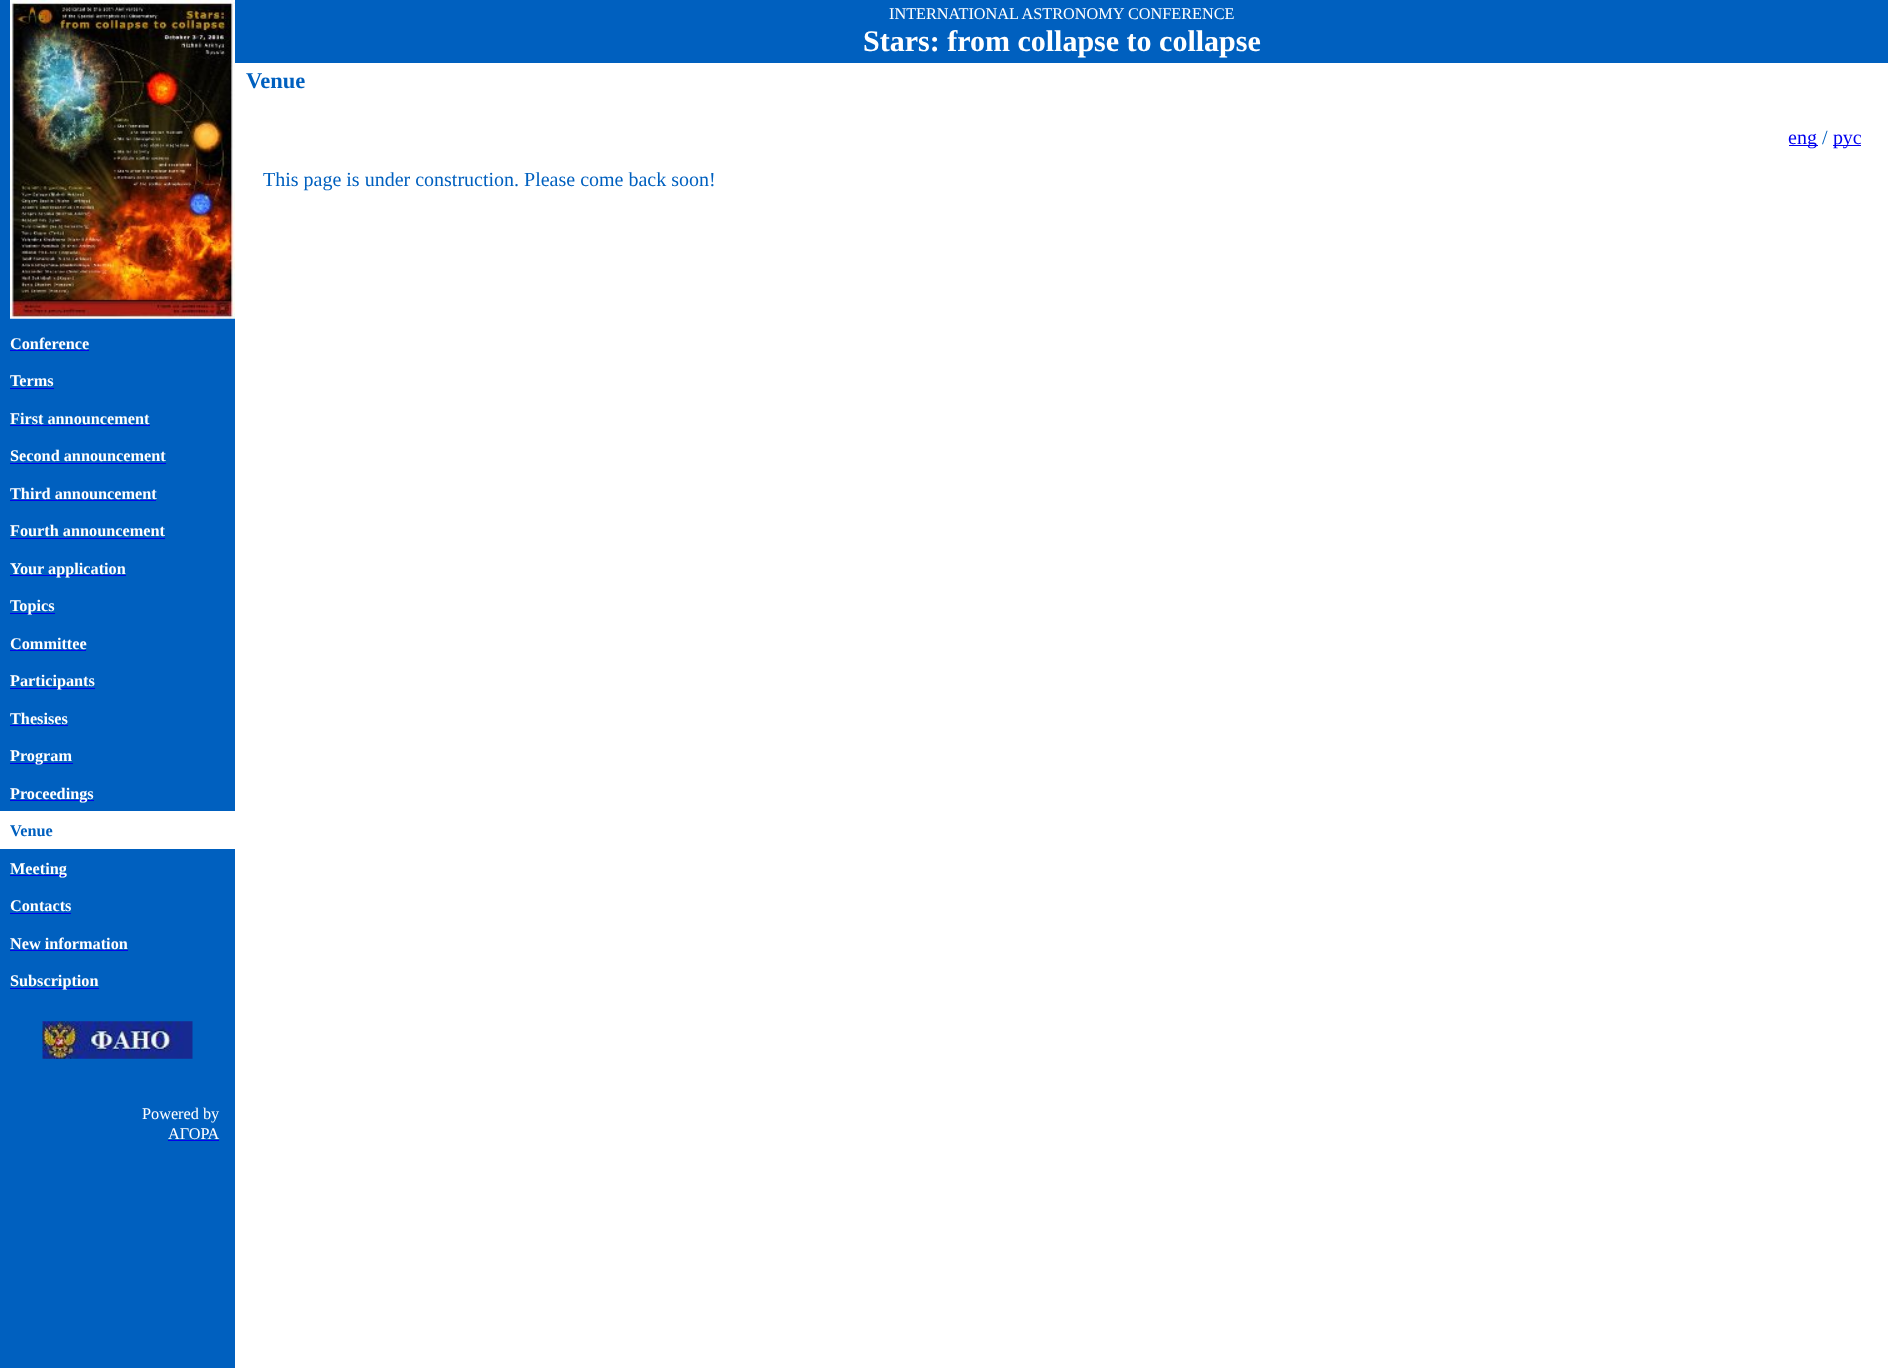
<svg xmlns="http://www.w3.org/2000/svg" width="1888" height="1368">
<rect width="100%" height="100%" fill="#fff"/>
<rect x="235" width="1653" height="63" fill="#0060bf"/>
<text x="889" y="19" style="font-family:Liberation Serif;font-size:16.25px;fill:#fff">INTERNATIONAL ASTRONOMY CONFERENCE</text>
<text x="863" y="51" style="font-family:Liberation Serif;font-size:30px;font-weight:bold;fill:#fff">Stars: from collapse to collapse</text>
<text x="246" y="88" style="font-family:Liberation Serif;font-size:22.5px;font-weight:bold;fill:#0060bf">Venue</text>
<rect x="1789" y="145" width="29" height="1" fill="#00e"/>
<text x="1788" y="144" style="font-family:Liberation Serif;font-size:20px;fill:#00e">eng</text>
<text x="1822" y="144" style="font-family:Liberation Serif;font-size:20px;fill:#0060bf">/</text>
<rect x="1833" y="145" width="28" height="1" fill="#00e"/>
<text x="1833" y="144" style="font-family:Liberation Serif;font-size:20px;fill:#00e">рус</text>
<text x="263" y="186" style="font-family:Liberation Serif;font-size:20px;fill:#0060bf">This page is under construction. Please come back soon!</text>
<rect width="235" height="1368" fill="#0060bf"/>
<image x="10" y="0" width="225" height="319" href="media/1.png"/>
<text x="10" y="349" style="font-family:Liberation Serif;font-size:16.25px;font-weight:bold;fill:#fff">Conference</text>
<rect x="10" y="350" width="79" height="1" fill="#00e"/>
<text x="10" y="386" style="font-family:Liberation Serif;font-size:16.25px;font-weight:bold;fill:#fff">Terms</text>
<rect x="10" y="388" width="44" height="1" fill="#00e"/>
<text x="10" y="424" style="font-family:Liberation Serif;font-size:16.25px;font-weight:bold;fill:#fff">First announcement</text>
<rect x="10" y="425" width="140" height="1" fill="#00e"/>
<text x="10" y="461" style="font-family:Liberation Serif;font-size:16.25px;font-weight:bold;fill:#fff">Second announcement</text>
<rect x="10" y="463" width="156" height="1" fill="#00e"/>
<text x="10" y="499" style="font-family:Liberation Serif;font-size:16.25px;font-weight:bold;fill:#fff">Third announcement</text>
<rect x="10" y="500" width="146" height="1" fill="#00e"/>
<text x="10" y="536" style="font-family:Liberation Serif;font-size:16.25px;font-weight:bold;fill:#fff">Fourth announcement</text>
<rect x="10" y="538" width="155" height="1" fill="#00e"/>
<rect x="10" y="575" width="116" height="1" fill="#00e"/>
<text x="10" y="574" style="font-family:Liberation Serif;font-size:16.25px;font-weight:bold;fill:#fff">Your application</text>
<rect x="10" y="613" width="45" height="1" fill="#00e"/>
<text x="10" y="611" style="font-family:Liberation Serif;font-size:16.25px;font-weight:bold;fill:#fff">Topics</text>
<text x="10" y="649" style="font-family:Liberation Serif;font-size:16.25px;font-weight:bold;fill:#fff">Committee</text>
<rect x="10" y="650" width="76" height="1" fill="#00e"/>
<rect x="10" y="688" width="85" height="1" fill="#00e"/>
<text x="10" y="686" style="font-family:Liberation Serif;font-size:16.25px;font-weight:bold;fill:#fff">Participants</text>
<text x="10" y="724" style="font-family:Liberation Serif;font-size:16.25px;font-weight:bold;fill:#fff">Thesises</text>
<rect x="10" y="725" width="58" height="1" fill="#00e"/>
<rect x="10" y="763" width="63" height="1" fill="#00e"/>
<text x="10" y="761" style="font-family:Liberation Serif;font-size:16.25px;font-weight:bold;fill:#fff">Program</text>
<rect x="10" y="800" width="84" height="1" fill="#00e"/>
<text x="10" y="799" style="font-family:Liberation Serif;font-size:16.25px;font-weight:bold;fill:#fff">Proceedings</text>
<rect y="811" width="235" height="38" fill="#fff"/>
<text x="10" y="836" style="font-family:Liberation Serif;font-size:16.25px;font-weight:bold;fill:#0060bf">Venue</text>
<rect x="10" y="875" width="56" height="1" fill="#00e"/>
<text x="10" y="874" style="font-family:Liberation Serif;font-size:16.25px;font-weight:bold;fill:#fff">Meeting</text>
<text x="10" y="911" style="font-family:Liberation Serif;font-size:16.25px;font-weight:bold;fill:#fff">Contacts</text>
<rect x="10" y="913" width="61" height="1" fill="#00e"/>
<text x="10" y="949" style="font-family:Liberation Serif;font-size:16.25px;font-weight:bold;fill:#fff">New information</text>
<rect x="10" y="950" width="118" height="1" fill="#00e"/>
<rect x="10" y="988" width="89" height="1" fill="#00e"/>
<text x="10" y="986" style="font-family:Liberation Serif;font-size:16.25px;font-weight:bold;fill:#fff">Subscription</text>
<image x="42" y="1021" width="151" height="38" href="media/2.png"/>
<text x="142" y="1119" style="font-family:Liberation Serif;font-size:16.25px;fill:#fff">Powered by</text>
<text x="168" y="1139" style="font-family:Liberation Serif;font-size:16.25px;fill:#fff">АГОРА</text>
<rect x="168" y="1140" width="51" height="1" fill="#00e"/>
</svg>
